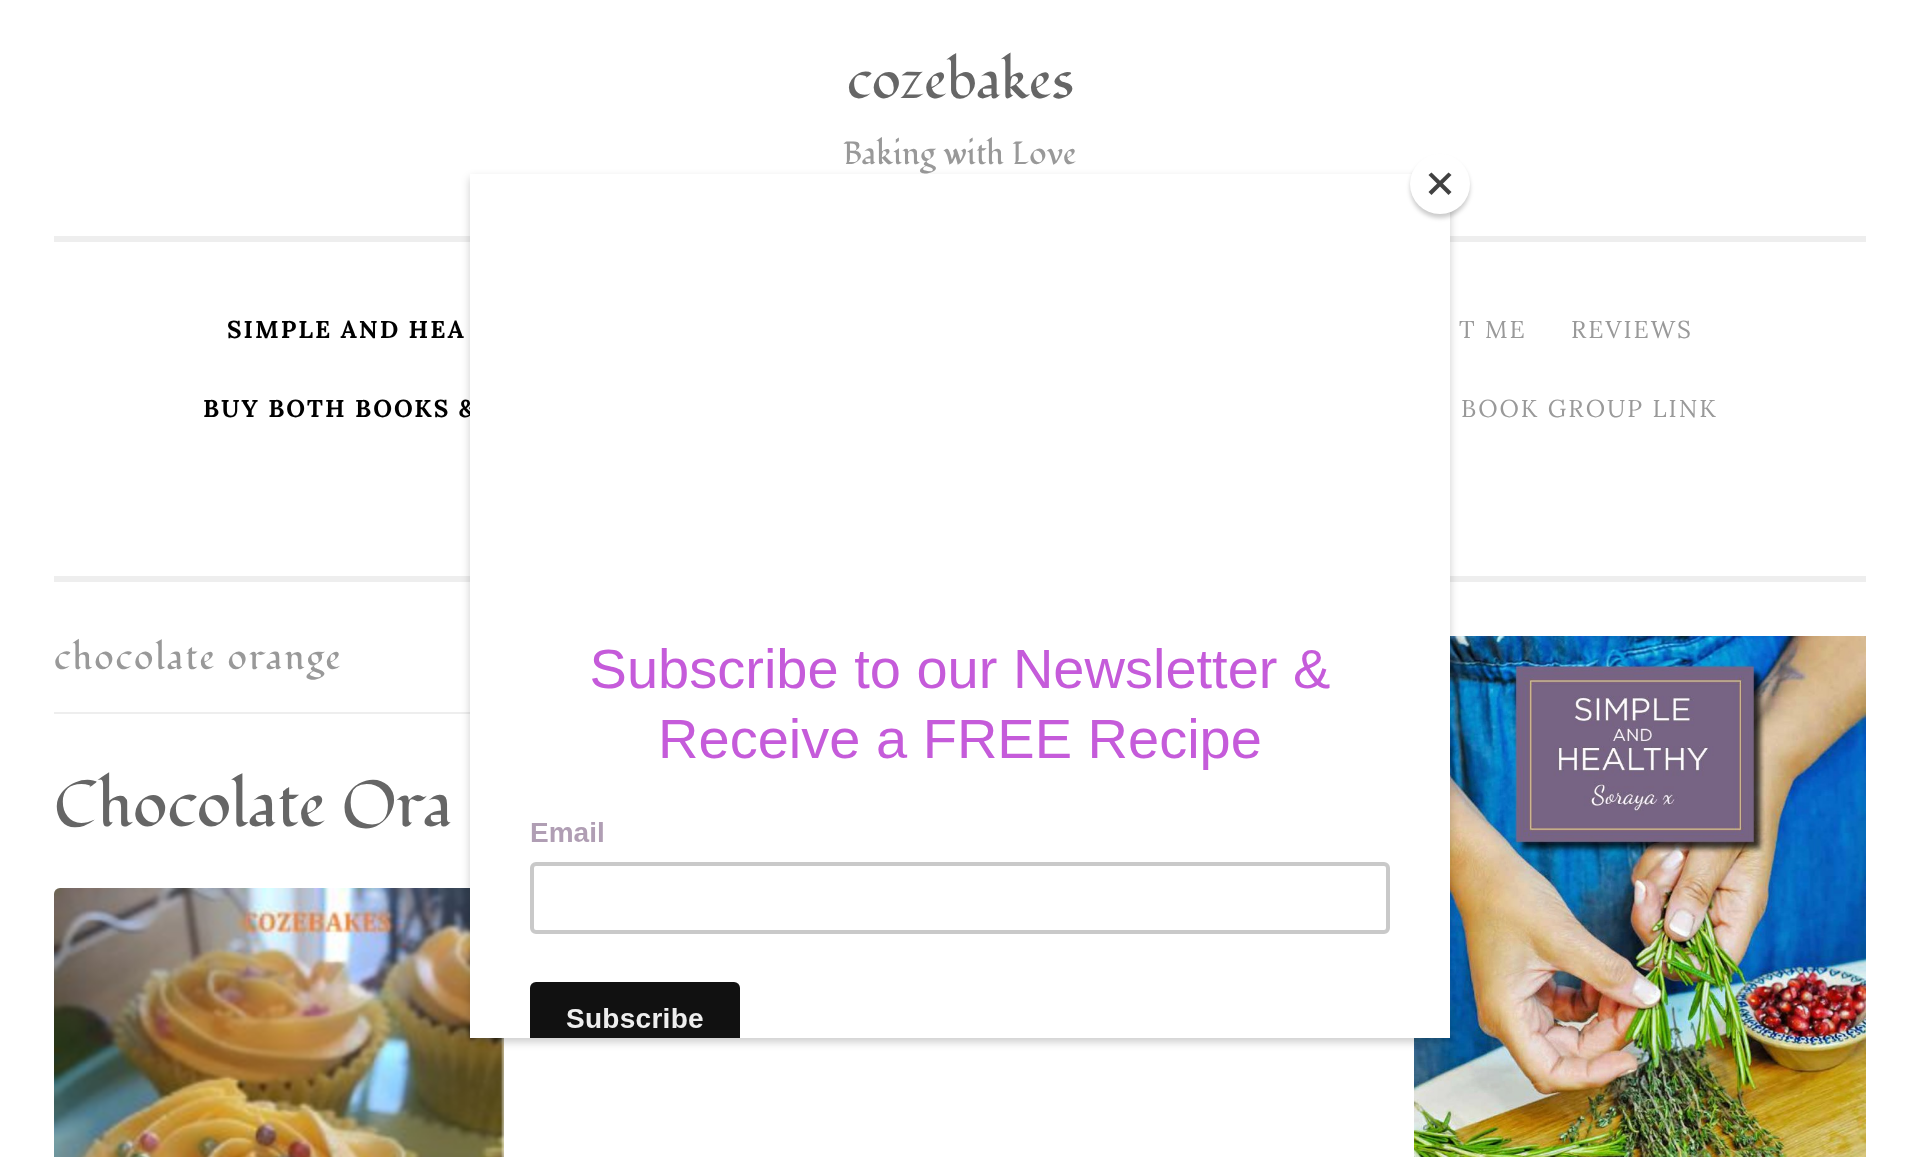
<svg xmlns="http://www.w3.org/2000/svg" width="1920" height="1157">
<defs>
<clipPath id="clip1"><path d="M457 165h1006v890h-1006zm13 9h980v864h-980z" clip-rule="evenodd"/></clipPath>
</defs>
<rect width="100%" height="100%" fill="#fff"/>
<rect x="54" y="576" width="1812" height="6" fill="#eee"/>
<text x="847" y="98" style="font-family:Fondamento;font-size:54px;fill:#666">cozebakes</text>
<text x="843" y="164" style="font-family:Fondamento;font-size:32px;fill:#999">Baking with Love</text>
<rect x="54" y="236" width="1812" height="6" fill="#eee"/>
<text x="227" y="338" style="font-family:Lora;font-size:24.4px;font-weight:bold;letter-spacing:2px;fill:#000">SIMPLE AND HEA</text>
<text x="1459" y="338" style="font-family:Lora;font-size:24.4px;letter-spacing:2px;fill:#999">T ME</text>
<text x="1571" y="338" style="font-family:Lora;font-size:24.4px;letter-spacing:2px;fill:#999">REVIEWS</text>
<text x="203" y="417" style="font-family:Lora;font-size:24.4px;font-weight:bold;letter-spacing:2px;fill:#000">BUY BOTH BOOKS &amp;</text>
<text x="1461" y="417" style="font-family:Lora;font-size:24.4px;letter-spacing:2px;fill:#999">BOOK GROUP LINK</text>
<rect x="54" y="712" width="416" height="2" fill="#eee"/>
<text x="54" y="669" style="font-family:Fondamento;font-size:36px;letter-spacing:2px;fill:#999">chocolate orange</text>
<text x="54" y="826" style="font-family:Fondamento;font-size:64px;fill:#666">Chocolate Ora</text>
<image x="54" y="888" width="450" height="269" href="media/1.png"/>
<image x="1414" y="636" width="452" height="521" href="media/2.png"/>
<rect x="1410" y="158" width="60" height="60" rx="30" fill="#00000033" filter="blur(2px)"/>
<g clip-path="url(#clip1)">
<rect x="470" y="178" width="980" height="864" fill="#00000033" filter="blur(4px)"/>
</g>
<circle cx="1440" cy="184" r="30" fill="#fff"/>
<path d="M1448.5 172.5l3 2.5l-20 20l-3-3z" fill="#414141"/>
<path d="M1428.5 175l3-2.5l20 19.5l-3 3z" fill="#414141"/>
<image x="470" y="236" width="980" height="802" href="media/3.png"/>
</svg>
